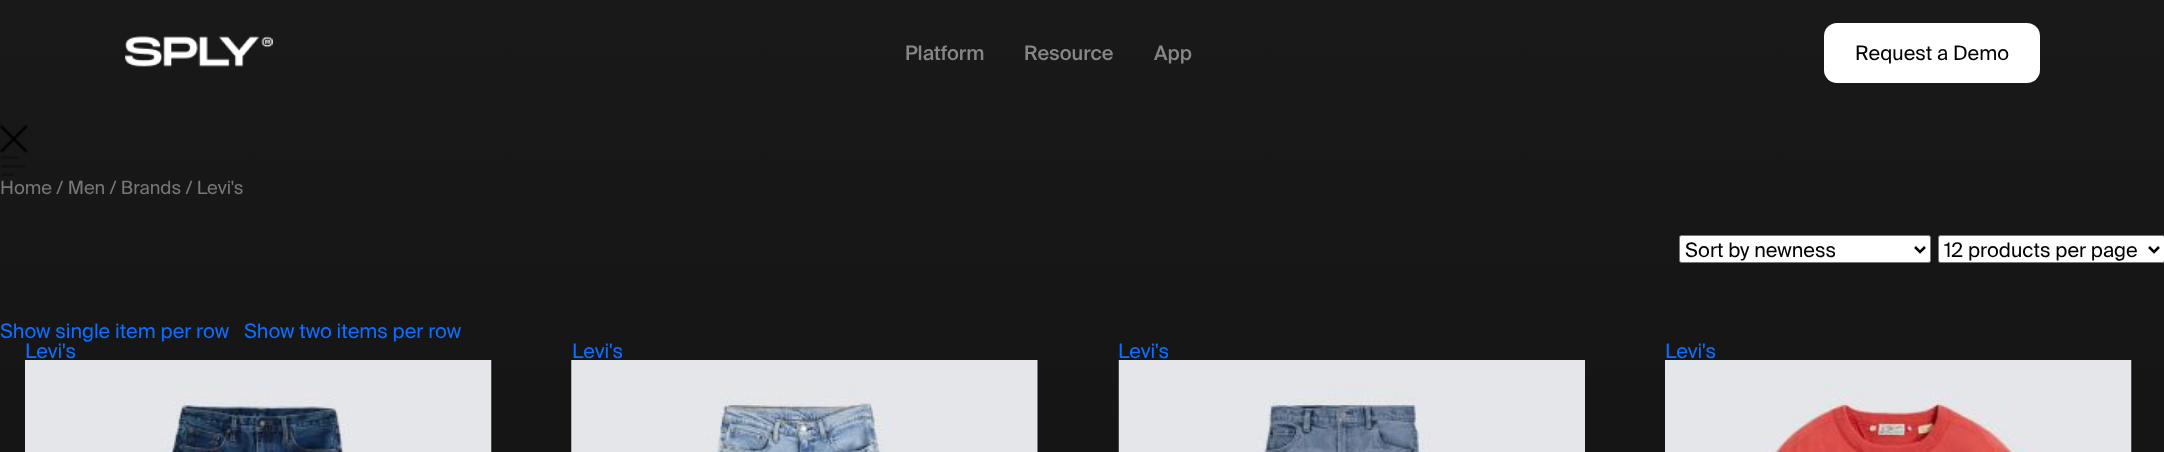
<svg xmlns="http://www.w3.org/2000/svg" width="2164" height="452">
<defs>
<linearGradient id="g1" gradientUnits="userSpaceOnUse" x1="1082" y1="0" x2="1083" y2="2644"><stop offset="0" stop-color="#191919"/><stop offset="1" stop-color="#000"/></linearGradient>
</defs>
<rect width="100%" height="100%" fill="#fff"/>
<rect width="2164" height="452" fill="url(#g1)"/>
<image x="125" y="36" width="148" height="31" href="media/1.png"/>
<text x="905" y="60" style="font-family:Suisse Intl;font-size:20px;font-weight:500;fill:#868686">Platform</text>
<text x="1024" y="60" style="font-family:Suisse Intl;font-size:20px;font-weight:500;fill:#868686">Resource</text>
<text x="1154" y="60" style="font-family:Suisse Intl;font-size:20px;font-weight:500;fill:#868686">App</text>
<rect x="1824" y="23" width="216" height="60" rx="13" fill="#fff"/>
<text x="1855" y="60" style="font-family:Suisse Intl;font-size:20px;fill:#000">Request a Demo</text>
<image x="0" y="125" width="28" height="28" href="media/2.png"/>
<image x="1" y="156" width="24" height="20" href="media/3.png"/>
<text x="0" y="194" style="font-family:Suisse Intl;font-size:18.4px;fill:#777">Home / Men / Brands / Levi's</text>
<rect x="1679.5" y="235.5" width="251" height="27" rx="2" fill="#fff" stroke="#767676"/>
<path d="M1915 247l5 5l5-5" fill="none" stroke="#000" stroke-width="2.5"/>
<text x="1685" y="257" style="font-family:Suisse Intl;font-size:20px;fill:#000">Sort by newness</text>
<rect x="1938.5" y="235.5" width="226" height="27" rx="2" fill="#fff" stroke="#767676"/>
<path d="M2149 247l5 5l5-5" fill="none" stroke="#000" stroke-width="2.5"/>
<text x="1944" y="257" style="font-family:Suisse Intl;font-size:20px;fill:#000">12 products per page</text>
<text x="0" y="338" style="font-family:Suisse Intl;font-size:20px;fill:#0d6efd">Show single item per row</text>
<text x="244" y="338" style="font-family:Suisse Intl;font-size:20px;fill:#0d6efd">Show two items per row</text>
<text x="25" y="358" style="font-family:Suisse Intl;font-size:20px;fill:#0d6efd">Levi's</text>
<image x="25" y="360" width="467" height="92" href="media/4.png"/>
<text x="572" y="358" style="font-family:Suisse Intl;font-size:20px;fill:#0d6efd">Levi's</text>
<image x="571" y="360" width="467" height="92" href="media/5.png"/>
<text x="1118" y="358" style="font-family:Suisse Intl;font-size:20px;fill:#0d6efd">Levi's</text>
<image x="1118" y="360" width="467" height="92" href="media/6.png"/>
<text x="1665" y="358" style="font-family:Suisse Intl;font-size:20px;fill:#0d6efd">Levi's</text>
<image x="1665" y="360" width="467" height="92" href="media/7.png"/>
</svg>
